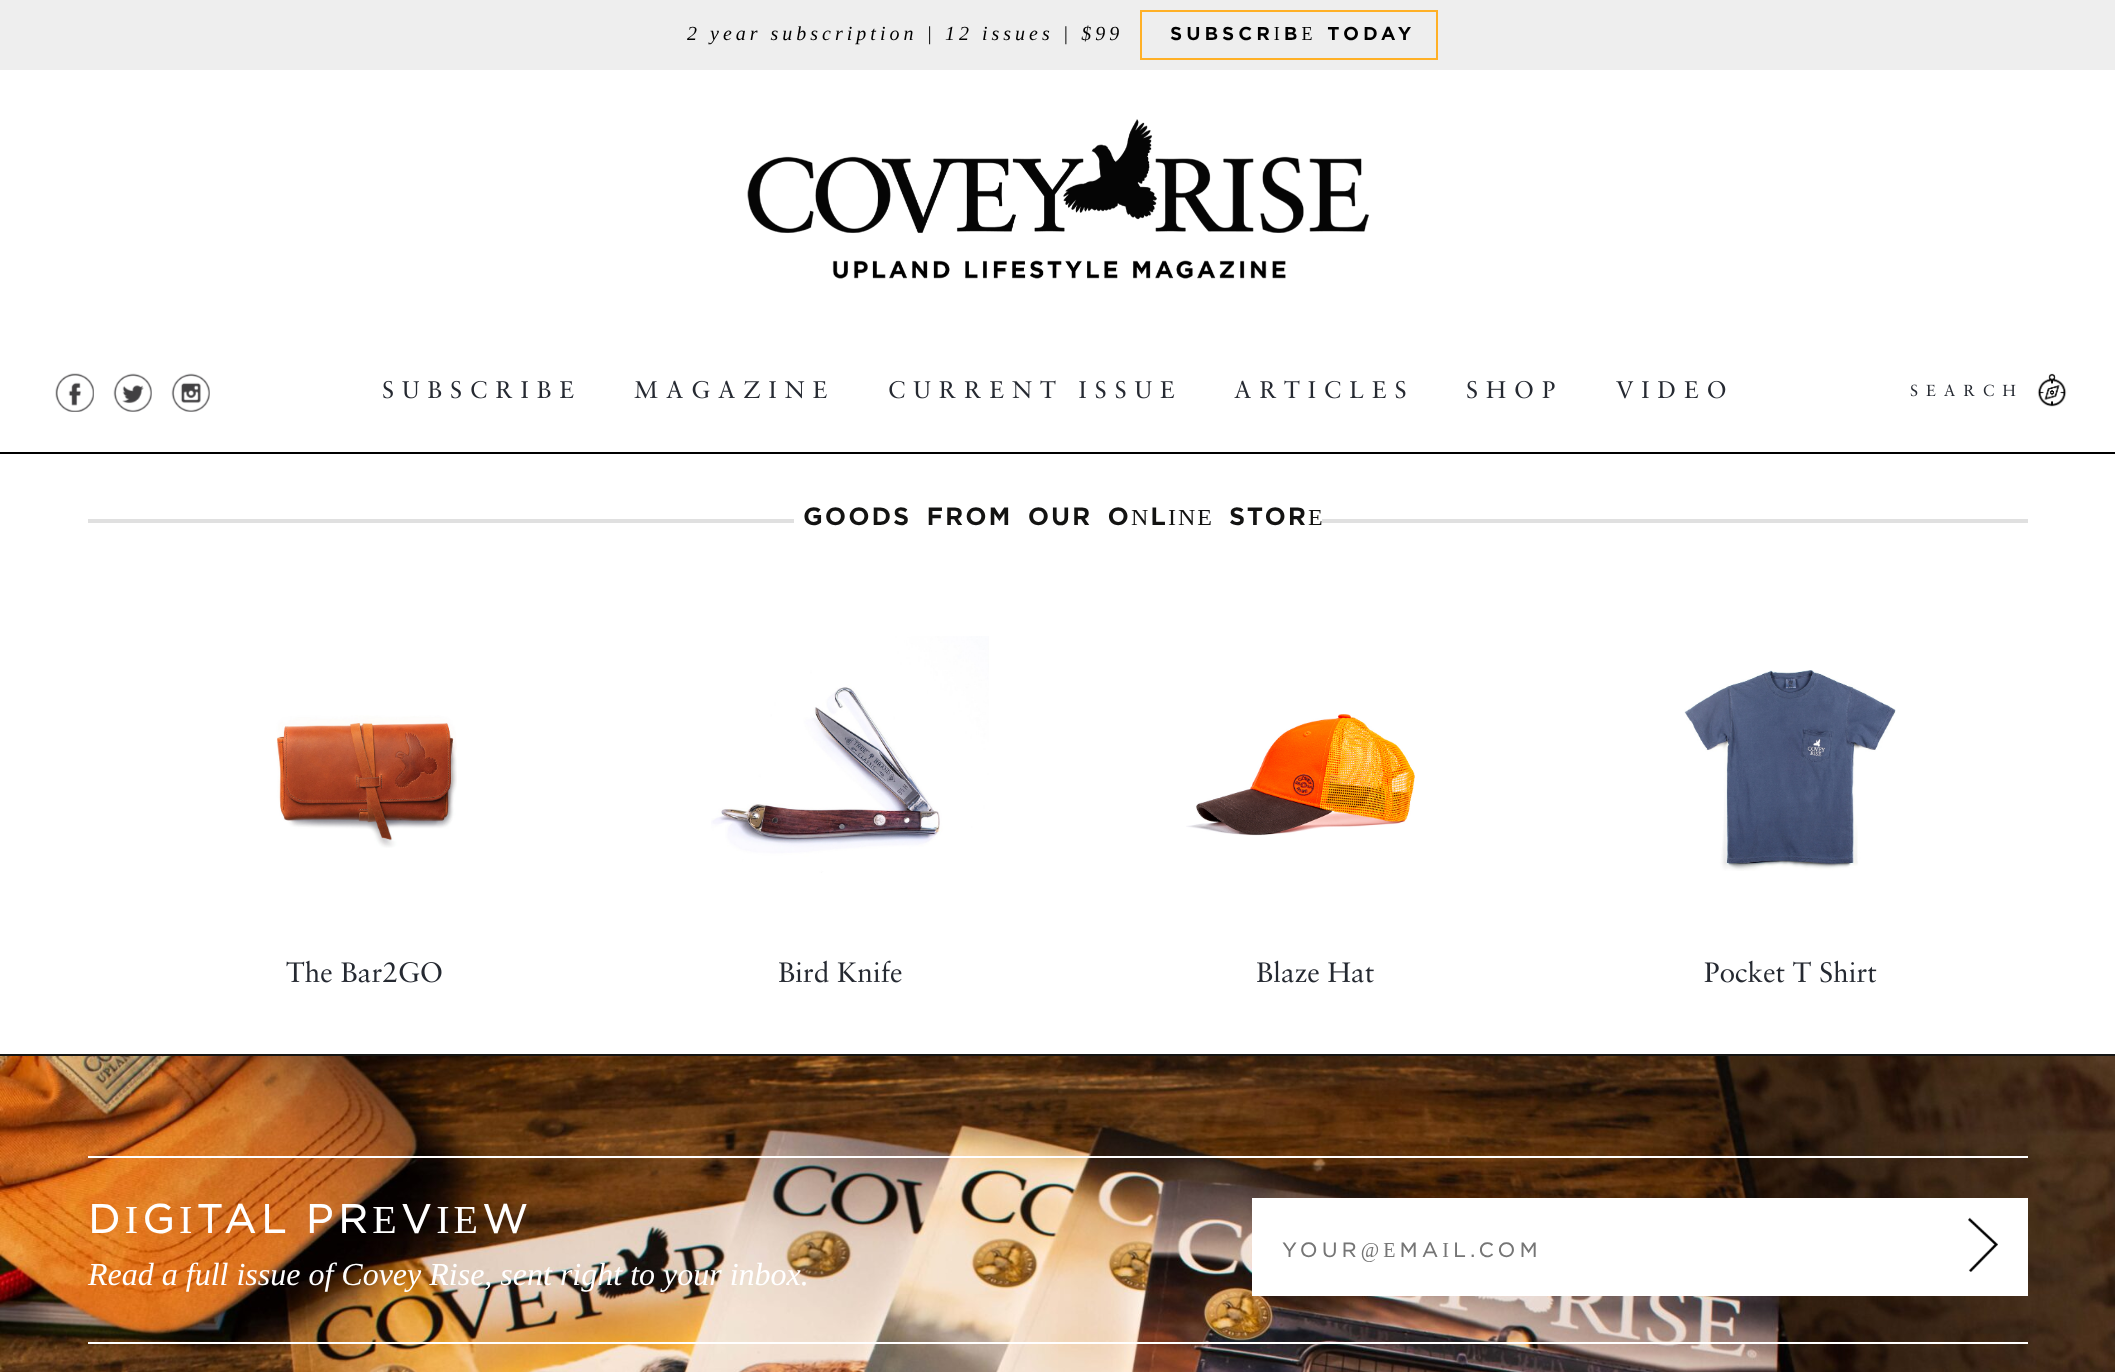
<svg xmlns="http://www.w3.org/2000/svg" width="2115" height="1372">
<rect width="100%" height="100%" fill="#fff"/>
<rect width="2115" height="70" fill="#eee"/>
<text x="687" y="40" style="font-family:Liberation Serif;font-size:20px;font-style:italic;letter-spacing:4px;fill:#000">2 year subscription | 12 issues | $99</text>
<rect x="1141" y="11" width="296" height="48" fill="none" stroke="#ffb026" stroke-width="2"/>
<text x="1170" y="40" word-spacing="1" style="font-family:'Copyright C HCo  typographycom';font-size:18px;letter-spacing:4px;fill:#000">SUBSCRIBE TODAY</text>
<rect y="452" width="2115" height="2" fill="#000"/>
<image x="747" y="119" width="622" height="160" href="media/1.png"/>
<image x="55" y="373" width="39" height="39" href="media/2.png"/>
<image x="113" y="373" width="39" height="39" href="media/3.png"/>
<image x="171" y="373" width="39" height="39" href="media/4.png"/>
<image x="383" y="380" width="191" height="19" href="media/5.png"/>
<image x="634" y="380" width="193" height="19" href="media/6.png"/>
<image x="889" y="380" width="286" height="19" href="media/7.png"/>
<image x="1234" y="380" width="172" height="19" href="media/8.png"/>
<image x="1467" y="380" width="88" height="19" href="media/9.png"/>
<image x="1616" y="380" width="110" height="19" href="media/10.png"/>
<image x="2037" y="373" width="30" height="34" href="media/11.png"/>
<image x="1910" y="384" width="106" height="13" href="media/12.png"/>
<rect x="88" y="519" width="1940" height="4" fill="#e0e0e0"/>
<rect x="794" y="519" width="528" height="4" fill="#fff"/>
<text x="803" y="525" word-spacing="5.5" style="font-family:'Copyright C HCo  typographycom';font-size:24px;letter-spacing:2px;fill:#131312">GOODS FROM OUR ONLINE STORE</text>
<image x="276" y="715" width="181" height="133" href="media/13.png"/>
<image x="286" y="960" width="156" height="23" href="media/14.png"/>
<image x="711" y="636" width="278" height="237" href="media/15.png"/>
<image x="779" y="960" width="123" height="23" href="media/16.png"/>
<image x="1186" y="714" width="229" height="122" href="media/17.png"/>
<image x="1257" y="960" width="117" height="23" href="media/18.png"/>
<image x="1684" y="670" width="212" height="201" href="media/19.png"/>
<image x="1704" y="960" width="173" height="23" href="media/20.png"/>
<image x="0" y="1056" width="2115" height="316" href="media/21.png"/>
<rect y="1054" width="2115" height="2" fill="#141514"/>
<rect x="88" y="1156" width="1940" height="2" fill="#fff"/>
<rect x="88" y="1342" width="1940" height="2" fill="#fff"/>
<text x="88" y="1233" word-spacing="-2" style="font-family:'Copyright C HCo  typographycom';font-size:40px;font-weight:300;letter-spacing:4px;fill:#fff">DIGITAL PREVIEW</text>
<text x="88" y="1285" style="font-family:Liberation Serif;font-size:32px;font-style:italic;fill:#fff">Read a full issue of Covey Rise, sent right to your inbox.</text>
<rect x="1252" y="1198" width="776" height="98" fill="#fff"/>
<text x="1282" y="1257" style="font-family:'Copyright C HCo  typographycom';font-size:20px;font-weight:300;letter-spacing:4px;fill:#757575">YOUR@EMAIL.COM</text>
<image x="1968" y="1217" width="30" height="55" href="media/22.png"/>
</svg>
